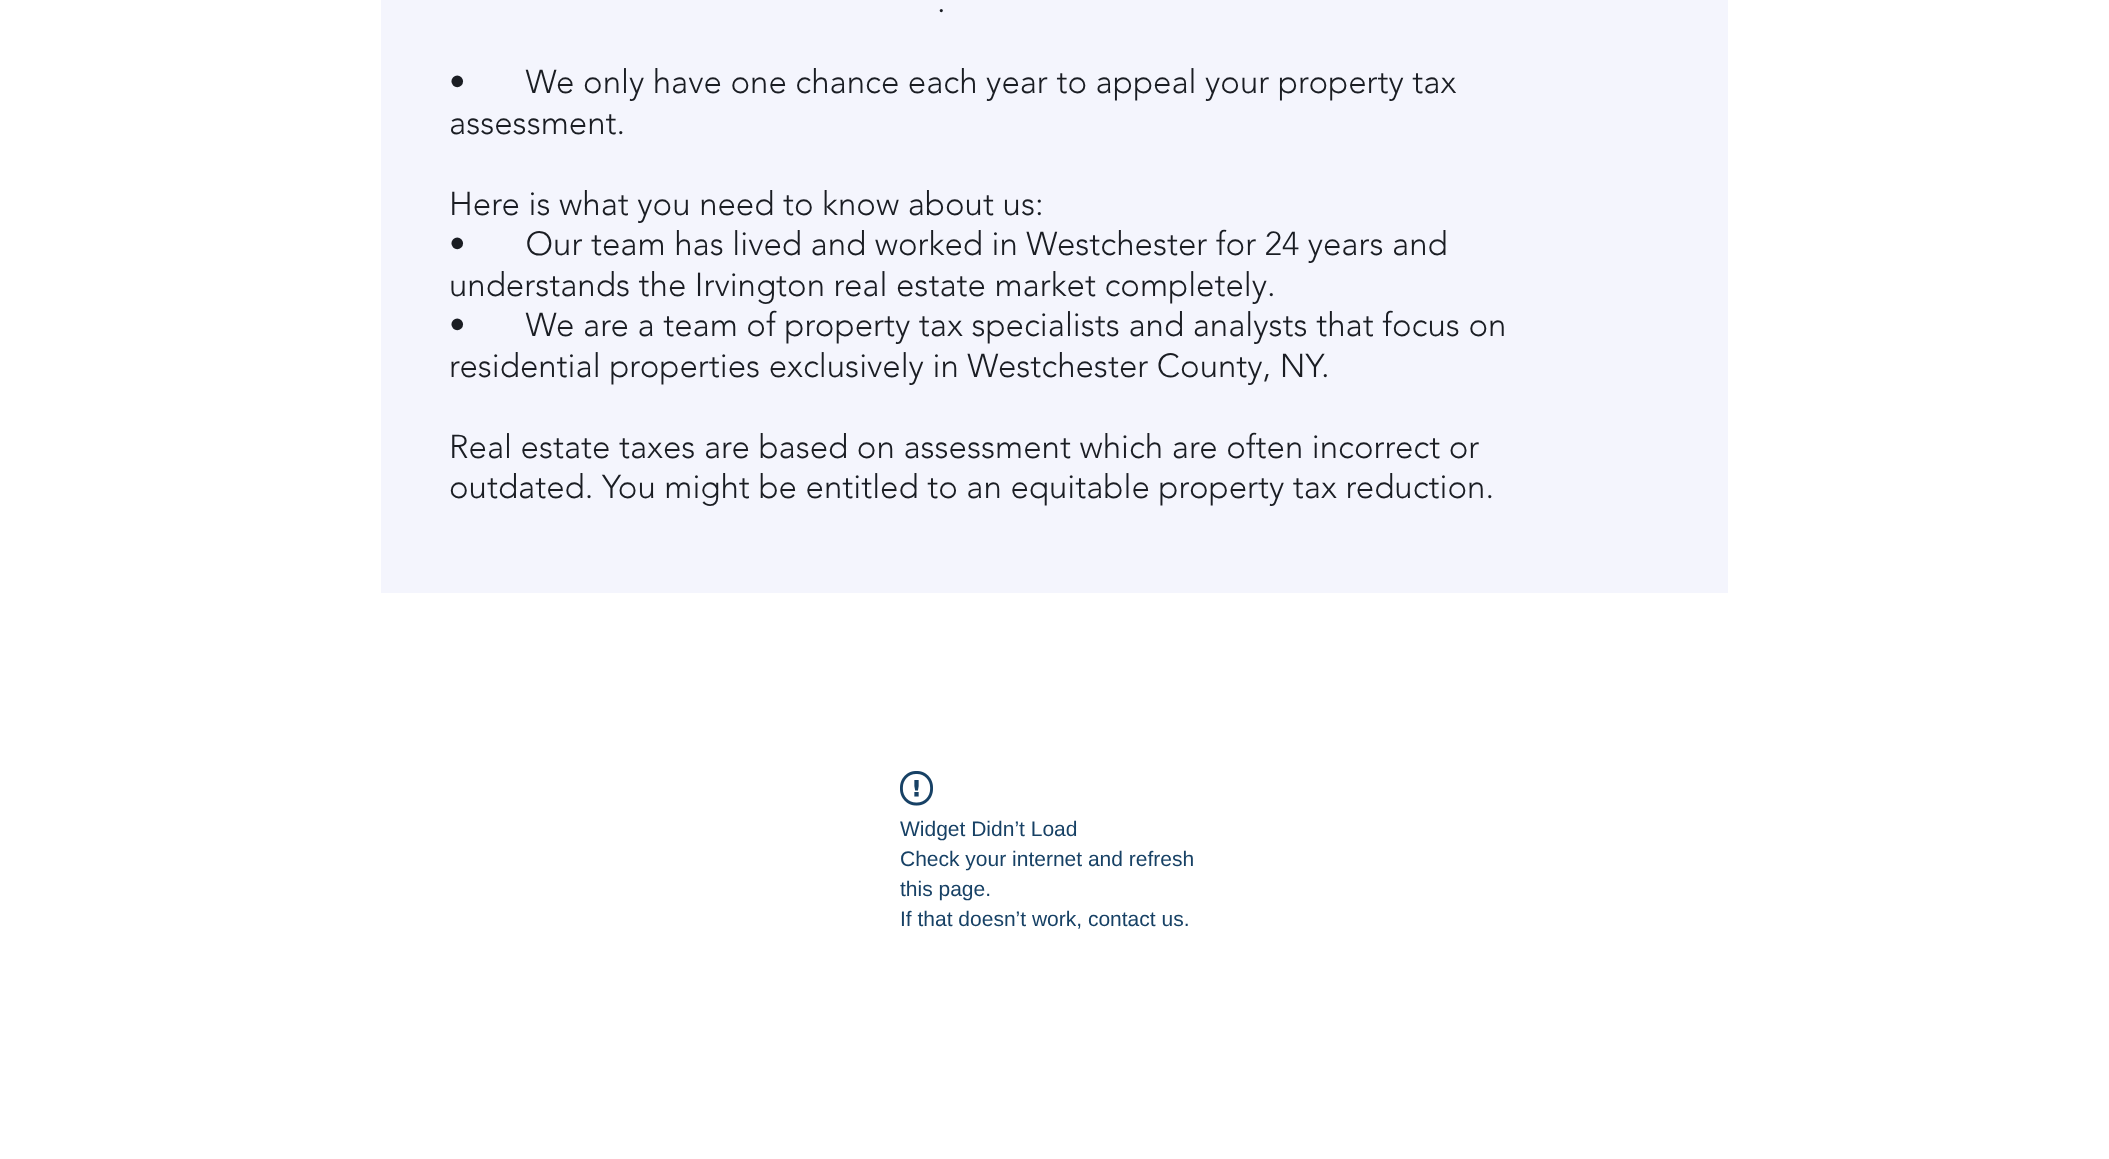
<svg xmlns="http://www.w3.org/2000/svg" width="2109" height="1159">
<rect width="100%" height="100%" fill="#fff"/>
<rect x="381" width="1347" height="593" fill="#f4f5fd"/>
<text x="937" y="12" style="font-family:'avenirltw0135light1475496';font-size:33px;font-weight:300;fill:#1a1d23">.</text>
<text x="449" y="93" style="font-family:'avenirltw0135light1475496';font-size:33px;font-weight:300;fill:#1a1d23" xml:space="preserve">•       We only have one chance each year to appeal your property tax</text>
<text x="449" y="134" style="font-family:'avenirltw0135light1475496';font-size:33px;font-weight:300;fill:#1a1d23">assessment.</text>
<text x="449" y="215" style="font-family:'avenirltw0135light1475496';font-size:33px;font-weight:300;fill:#1a1d23">Here is what you need to know about us:</text>
<text x="449" y="255" style="font-family:'avenirltw0135light1475496';font-size:33px;font-weight:300;fill:#1a1d23" xml:space="preserve">•       Our team has lived and worked in Westchester for 24 years and</text>
<text x="449" y="296" style="font-family:'avenirltw0135light1475496';font-size:33px;font-weight:300;fill:#1a1d23">understands the Irvington real estate market completely.</text>
<text x="449" y="336" style="font-family:'avenirltw0135light1475496';font-size:33px;font-weight:300;fill:#1a1d23" xml:space="preserve">•       We are a team of property tax specialists and analysts that focus on</text>
<text x="449" y="377" style="font-family:'avenirltw0135light1475496';font-size:33px;font-weight:300;fill:#1a1d23">residential properties exclusively in Westchester County, NY.</text>
<text x="449" y="458" style="font-family:'avenirltw0135light1475496';font-size:33px;font-weight:300;fill:#1a1d23">Real estate taxes are based on assessment which are often incorrect or</text>
<text x="449" y="498" style="font-family:'avenirltw0135light1475496';font-size:33px;font-weight:300;fill:#1a1d23">outdated. You might be entitled to an equitable property tax reduction.</text>
<image x="900" y="771" width="33" height="35" href="media/1.png"/>
<text x="900" y="836" style="font-family:Liberation Sans;font-size:21px;fill:#174165">Widget Didn’t Load</text>
<text x="900" y="866" style="font-family:Liberation Sans;font-size:21px;fill:#174165">Check your internet and refresh</text>
<text x="900" y="896" style="font-family:Liberation Sans;font-size:21px;fill:#174165">this page.</text>
<text x="900" y="926" style="font-family:Liberation Sans;font-size:21px;fill:#174165">If that doesn’t work, contact us.</text>
</svg>
